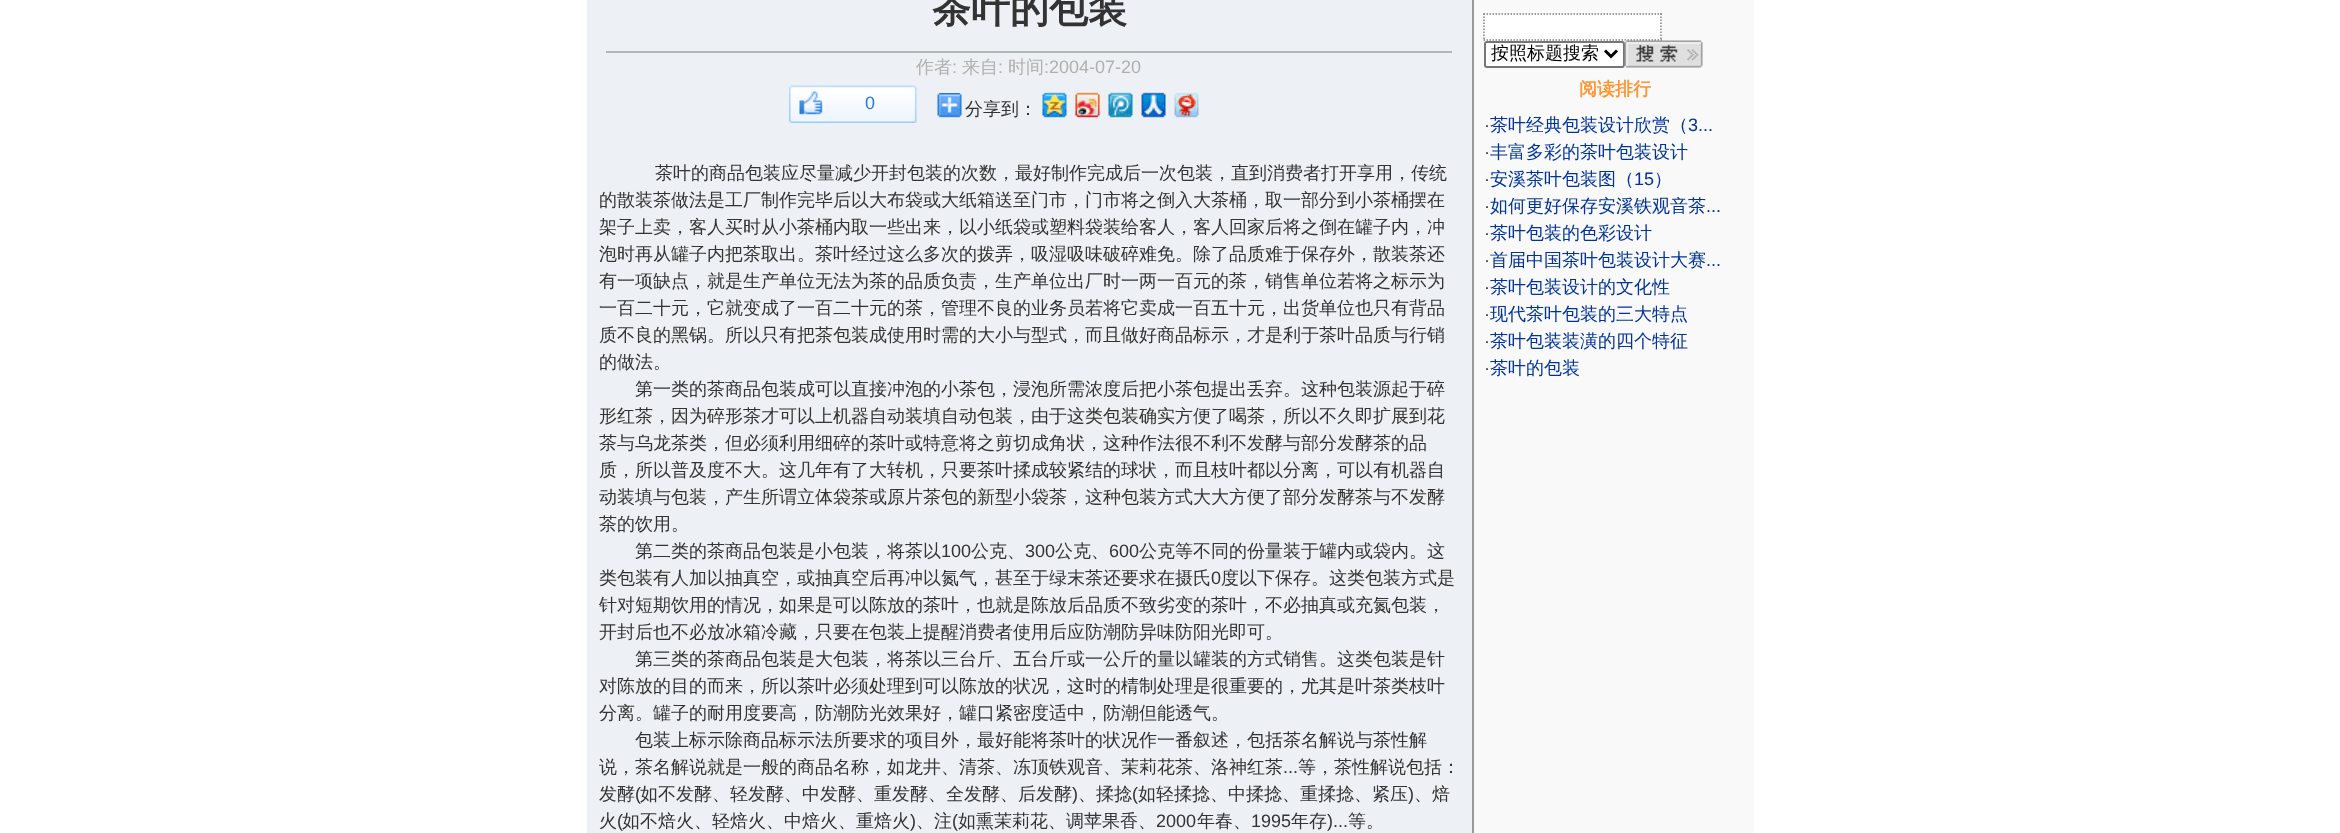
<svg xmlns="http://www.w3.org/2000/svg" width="2340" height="833">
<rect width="100%" height="100%" fill="#fff"/>
<rect x="1474" width="280" height="833" fill="#f9f9f9"/>
<rect x="587" width="885" height="833" fill="#edf0f5"/>
<rect x="1472" width="2" height="833" fill="#999"/>
<text x="932" y="22" style="font-family:WenQuanYi Zen Hei;font-size:39px;font-weight:bold;fill:#333">茶叶的包装</text>
<rect x="606" y="51" width="846" height="2" fill="#b1b8b7"/>
<text x="916" y="73" style="font-family:WenQuanYi Zen Hei;font-size:18px;font-weight:500;fill:#b0b0b0">作者</text>
<text x="952" y="73" style="font-family:Liberation Sans;font-size:18px;fill:#b0b0b0">:</text>
<text x="962" y="73" style="font-family:WenQuanYi Zen Hei;font-size:18px;font-weight:500;fill:#b0b0b0">来自</text>
<text x="998" y="73" style="font-family:Liberation Sans;font-size:18px;fill:#b0b0b0">:</text>
<text x="1008" y="73" style="font-family:WenQuanYi Zen Hei;font-size:18px;font-weight:500;fill:#b0b0b0">时间</text>
<text x="1044" y="73" style="font-family:Liberation Sans;font-size:18px;fill:#b0b0b0">:2004-07-20</text>
<image x="789" y="85" width="128" height="38" href="media/1.png"/>
<text x="865" y="109" style="font-family:Liberation Sans;font-size:18px;fill:#2979d3">0</text>
<image x="937" y="93" width="25" height="25" href="media/2.png"/>
<text x="965" y="115" style="font-family:WenQuanYi Zen Hei;font-size:18px;font-weight:500;fill:#333">分享到：</text>
<image x="1042" y="92" width="25" height="26" href="media/3.png"/>
<image x="1075" y="92" width="25" height="26" href="media/4.png"/>
<image x="1108" y="92" width="25" height="26" href="media/5.png"/>
<image x="1141" y="92" width="25" height="26" href="media/6.png"/>
<image x="1174" y="92" width="25" height="26" href="media/7.png"/>
<text x="655" y="179" style="font-family:WenQuanYi Zen Hei;font-size:18px;font-weight:500;fill:#333">茶叶的商品包装应尽量减少开封包装的次数，最好制作完成后一次包装，直到消费者打开享用，传统</text>
<text x="599" y="206" style="font-family:WenQuanYi Zen Hei;font-size:18px;font-weight:500;fill:#333">的散装茶做法是工厂制作完毕后以大布袋或大纸箱送至门市，门市将之倒入大茶桶，取一部分到小茶桶摆在</text>
<text x="599" y="233" style="font-family:WenQuanYi Zen Hei;font-size:18px;font-weight:500;fill:#333">架子上卖，客人买时从小茶桶内取一些出来，以小纸袋或塑料袋装给客人，客人回家后将之倒在罐子内，冲</text>
<text x="599" y="260" style="font-family:WenQuanYi Zen Hei;font-size:18px;font-weight:500;fill:#333">泡时再从罐子内把茶取出。茶叶经过这么多次的拨弄，吸湿吸味破碎难免。除了品质难于保存外，散装茶还</text>
<text x="599" y="287" style="font-family:WenQuanYi Zen Hei;font-size:18px;font-weight:500;fill:#333">有一项缺点，就是生产单位无法为茶的品质负责，生产单位出厂时一两一百元的茶，销售单位若将之标示为</text>
<text x="599" y="314" style="font-family:WenQuanYi Zen Hei;font-size:18px;font-weight:500;fill:#333">一百二十元，它就变成了一百二十元的茶，管理不良的业务员若将它卖成一百五十元，出货单位也只有背品</text>
<text x="599" y="341" style="font-family:WenQuanYi Zen Hei;font-size:18px;font-weight:500;fill:#333">质不良的黑锅。所以只有把茶包装成使用时需的大小与型式，而且做好商品标示，才是利于茶叶品质与行销</text>
<text x="599" y="368" style="font-family:WenQuanYi Zen Hei;font-size:18px;font-weight:500;fill:#333">的做法。</text>
<text x="635" y="395" style="font-family:WenQuanYi Zen Hei;font-size:18px;font-weight:500;fill:#333">第一类的茶商品包装成可以直接冲泡的小茶包，浸泡所需浓度后把小茶包提出丢弃。这种包装源起于碎</text>
<text x="599" y="422" style="font-family:WenQuanYi Zen Hei;font-size:18px;font-weight:500;fill:#333">形红茶，因为碎形茶才可以上机器自动装填自动包装，由于这类包装确实方便了喝茶，所以不久即扩展到花</text>
<text x="599" y="449" style="font-family:WenQuanYi Zen Hei;font-size:18px;font-weight:500;fill:#333">茶与乌龙茶类，但必须利用细碎的茶叶或特意将之剪切成角状，这种作法很不利不发酵与部分发酵茶的品</text>
<text x="599" y="476" style="font-family:WenQuanYi Zen Hei;font-size:18px;font-weight:500;fill:#333">质，所以普及度不大。这几年有了大转机，只要茶叶揉成较紧结的球状，而且枝叶都以分离，可以有机器自</text>
<text x="599" y="503" style="font-family:WenQuanYi Zen Hei;font-size:18px;font-weight:500;fill:#333">动装填与包装，产生所谓立体袋茶或原片茶包的新型小袋茶，这种包装方式大大方便了部分发酵茶与不发酵</text>
<text x="599" y="530" style="font-family:WenQuanYi Zen Hei;font-size:18px;font-weight:500;fill:#333">茶的饮用。</text>
<text x="635" y="557" style="font-family:WenQuanYi Zen Hei;font-size:18px;font-weight:500;fill:#333">第二类的茶商品包装是小包装，将茶以</text>
<text x="941" y="557" style="font-family:Liberation Sans;font-size:18px;fill:#333">100</text>
<text x="971" y="557" style="font-family:WenQuanYi Zen Hei;font-size:18px;font-weight:500;fill:#333">公克、</text>
<text x="1025" y="557" style="font-family:Liberation Sans;font-size:18px;fill:#333">300</text>
<text x="1055" y="557" style="font-family:WenQuanYi Zen Hei;font-size:18px;font-weight:500;fill:#333">公克、</text>
<text x="1109" y="557" style="font-family:Liberation Sans;font-size:18px;fill:#333">600</text>
<text x="1139" y="557" style="font-family:WenQuanYi Zen Hei;font-size:18px;font-weight:500;fill:#333">公克等不同的份量装于罐内或袋内。这</text>
<text x="599" y="584" style="font-family:WenQuanYi Zen Hei;font-size:18px;font-weight:500;fill:#333">类包装有人加以抽真空，或抽真空后再冲以氮气，甚至于绿末茶还要求在摄氏</text>
<text x="1211" y="584" style="font-family:Liberation Sans;font-size:18px;fill:#333">0</text>
<text x="1221" y="584" style="font-family:WenQuanYi Zen Hei;font-size:18px;font-weight:500;fill:#333">度以下保存。这类包装方式是</text>
<text x="599" y="611" style="font-family:WenQuanYi Zen Hei;font-size:18px;font-weight:500;fill:#333">针对短期饮用的情况，如果是可以陈放的茶叶，也就是陈放后品质不致劣变的茶叶，不必抽真或充氮包装，</text>
<text x="599" y="638" style="font-family:WenQuanYi Zen Hei;font-size:18px;font-weight:500;fill:#333">开封后也不必放冰箱冷藏，只要在包装上提醒消费者使用后应防潮防异味防阳光即可。</text>
<text x="635" y="665" style="font-family:WenQuanYi Zen Hei;font-size:18px;font-weight:500;fill:#333">第三类的茶商品包装是大包装，将茶以三台斤、五台斤或一公斤的量以罐装的方式销售。这类包装是针</text>
<text x="599" y="692" style="font-family:WenQuanYi Zen Hei;font-size:18px;font-weight:500;fill:#333">对陈放的目的而来，所以茶叶必须处理到可以陈放的状况，这时的棈制处理是很重要的，尤其是叶茶类枝叶</text>
<text x="599" y="719" style="font-family:WenQuanYi Zen Hei;font-size:18px;font-weight:500;fill:#333">分离。罐子的耐用度要高，防潮防光效果好，罐口紧密度适中，防潮但能透气。</text>
<text x="635" y="746" style="font-family:WenQuanYi Zen Hei;font-size:18px;font-weight:500;fill:#333">包装上标示除商品标示法所要求的项目外，最好能将茶叶的状况作一番叙述，包括茶名解说与茶性解</text>
<text x="599" y="773" style="font-family:WenQuanYi Zen Hei;font-size:18px;font-weight:500;fill:#333">说，茶名解说就是一般的商品名称，如龙井、清茶、冻顶铁观音、茉莉花茶、洛神红茶</text>
<text x="1283" y="773" style="font-family:Liberation Sans;font-size:18px;fill:#333">...</text>
<text x="1298" y="773" style="font-family:WenQuanYi Zen Hei;font-size:18px;font-weight:500;fill:#333">等，茶性解说包括：</text>
<text x="599" y="800" style="font-family:WenQuanYi Zen Hei;font-size:18px;font-weight:500;fill:#333">发酵</text>
<text x="635" y="800" style="font-family:Liberation Sans;font-size:18px;fill:#333">(</text>
<text x="640" y="800" style="font-family:WenQuanYi Zen Hei;font-size:18px;font-weight:500;fill:#333">如不发酵、轻发酵、中发酵、重发酵、全发酵、后发酵</text>
<text x="1072" y="800" style="font-family:Liberation Sans;font-size:18px;fill:#333">)</text>
<text x="1078" y="800" style="font-family:WenQuanYi Zen Hei;font-size:18px;font-weight:500;fill:#333">、揉捻</text>
<text x="1132" y="800" style="font-family:Liberation Sans;font-size:18px;fill:#333">(</text>
<text x="1138" y="800" style="font-family:WenQuanYi Zen Hei;font-size:18px;font-weight:500;fill:#333">如轻揉捻、中揉捻、重揉捻、紧压</text>
<text x="1408" y="800" style="font-family:Liberation Sans;font-size:18px;fill:#333">)</text>
<text x="1414" y="800" style="font-family:WenQuanYi Zen Hei;font-size:18px;font-weight:500;fill:#333">、焙</text>
<text x="599" y="827" style="font-family:WenQuanYi Zen Hei;font-size:18px;font-weight:500;fill:#333">火</text>
<text x="617" y="827" style="font-family:Liberation Sans;font-size:18px;fill:#333">(</text>
<text x="622" y="827" style="font-family:WenQuanYi Zen Hei;font-size:18px;font-weight:500;fill:#333">如不焙火、轻焙火、中焙火、重焙火</text>
<text x="910" y="827" style="font-family:Liberation Sans;font-size:18px;fill:#333">)</text>
<text x="916" y="827" style="font-family:WenQuanYi Zen Hei;font-size:18px;font-weight:500;fill:#333">、注</text>
<text x="952" y="827" style="font-family:Liberation Sans;font-size:18px;fill:#333">(</text>
<text x="958" y="827" style="font-family:WenQuanYi Zen Hei;font-size:18px;font-weight:500;fill:#333">如熏茉莉花、调苹果香、</text>
<text x="1156" y="827" style="font-family:Liberation Sans;font-size:18px;fill:#333">2000</text>
<text x="1197" y="827" style="font-family:WenQuanYi Zen Hei;font-size:18px;font-weight:500;fill:#333">年春、</text>
<text x="1251" y="827" style="font-family:Liberation Sans;font-size:18px;fill:#333">1995</text>
<text x="1291" y="827" style="font-family:WenQuanYi Zen Hei;font-size:18px;font-weight:500;fill:#333">年存</text>
<text x="1327" y="827" style="font-family:Liberation Sans;font-size:18px;fill:#333">)...</text>
<text x="1348" y="827" style="font-family:WenQuanYi Zen Hei;font-size:18px;font-weight:500;fill:#333">等。</text>
<rect x="1484" y="14" width="178" height="27" fill="#fff"/>
<path d="M1483.5 14h178.5" fill="none" stroke="#808080" stroke-width="1.5" stroke-dasharray="1.5 1.5"/>
<path d="M1661 13.5v27" fill="none" stroke="#808080" stroke-width="1.5" stroke-dasharray="1.5 1.5"/>
<path d="M1483.5 40h178.5" fill="none" stroke="#808080" stroke-width="1.5" stroke-dasharray="1.5 1.5"/>
<path d="M1484 13.5v27" fill="none" stroke="#808080" stroke-width="1.5" stroke-dasharray="1.5 1.5"/>
<rect x="1485" y="42" width="139" height="25" rx="2" fill="#fff" stroke="#767676" stroke-width="2"/>
<path d="M1605 50.5l6 6l6-6" fill="none" stroke="#000" stroke-width="3"/>
<text x="1491" y="59" style="font-family:WenQuanYi Zen Hei;font-size:18px;font-weight:500;fill:#000">按照标题搜索</text>
<image x="1624" y="40" width="79" height="28" href="media/8.png"/>
<text x="1579" y="95" style="font-family:WenQuanYi Zen Hei;font-size:18px;font-weight:bold;fill:#ff9431">阅读排行</text>
<text x="1484" y="131" style="font-family:Liberation Sans;font-size:18px;fill:#333">·</text>
<text x="1490" y="131" style="font-family:WenQuanYi Zen Hei;font-size:18px;font-weight:500;fill:#039">茶叶经典包装设计欣赏（</text>
<text x="1688" y="131" style="font-family:Liberation Sans;font-size:18px;fill:#039">3...</text>
<text x="1484" y="158" style="font-family:Liberation Sans;font-size:18px;fill:#333">·</text>
<text x="1490" y="158" style="font-family:WenQuanYi Zen Hei;font-size:18px;font-weight:500;fill:#039">丰富多彩的茶叶包装设计</text>
<text x="1484" y="185" style="font-family:Liberation Sans;font-size:18px;fill:#333">·</text>
<text x="1490" y="185" style="font-family:WenQuanYi Zen Hei;font-size:18px;font-weight:500;fill:#039">安溪茶叶包装图（</text>
<text x="1634" y="185" style="font-family:Liberation Sans;font-size:18px;fill:#039">15</text>
<text x="1654" y="185" style="font-family:WenQuanYi Zen Hei;font-size:18px;font-weight:500;fill:#039">）</text>
<text x="1484" y="212" style="font-family:Liberation Sans;font-size:18px;fill:#333">·</text>
<text x="1490" y="212" style="font-family:WenQuanYi Zen Hei;font-size:18px;font-weight:500;fill:#039">如何更好保存安溪铁观音茶</text>
<text x="1706" y="212" style="font-family:Liberation Sans;font-size:18px;fill:#039">...</text>
<text x="1484" y="239" style="font-family:Liberation Sans;font-size:18px;fill:#333">·</text>
<text x="1490" y="239" style="font-family:WenQuanYi Zen Hei;font-size:18px;font-weight:500;fill:#039">茶叶包装的色彩设计</text>
<text x="1484" y="266" style="font-family:Liberation Sans;font-size:18px;fill:#333">·</text>
<text x="1490" y="266" style="font-family:WenQuanYi Zen Hei;font-size:18px;font-weight:500;fill:#039">首届中国茶叶包装设计大赛</text>
<text x="1706" y="266" style="font-family:Liberation Sans;font-size:18px;fill:#039">...</text>
<text x="1484" y="293" style="font-family:Liberation Sans;font-size:18px;fill:#333">·</text>
<text x="1490" y="293" style="font-family:WenQuanYi Zen Hei;font-size:18px;font-weight:500;fill:#039">茶叶包装设计的文化性</text>
<text x="1484" y="320" style="font-family:Liberation Sans;font-size:18px;fill:#333">·</text>
<text x="1490" y="320" style="font-family:WenQuanYi Zen Hei;font-size:18px;font-weight:500;fill:#039">现代茶叶包装的三大特点</text>
<text x="1484" y="347" style="font-family:Liberation Sans;font-size:18px;fill:#333">·</text>
<text x="1490" y="347" style="font-family:WenQuanYi Zen Hei;font-size:18px;font-weight:500;fill:#039">茶叶包装装潢的四个特征</text>
<text x="1484" y="374" style="font-family:Liberation Sans;font-size:18px;fill:#333">·</text>
<text x="1490" y="374" style="font-family:WenQuanYi Zen Hei;font-size:18px;font-weight:500;fill:#039">茶叶的包装</text>
</svg>
